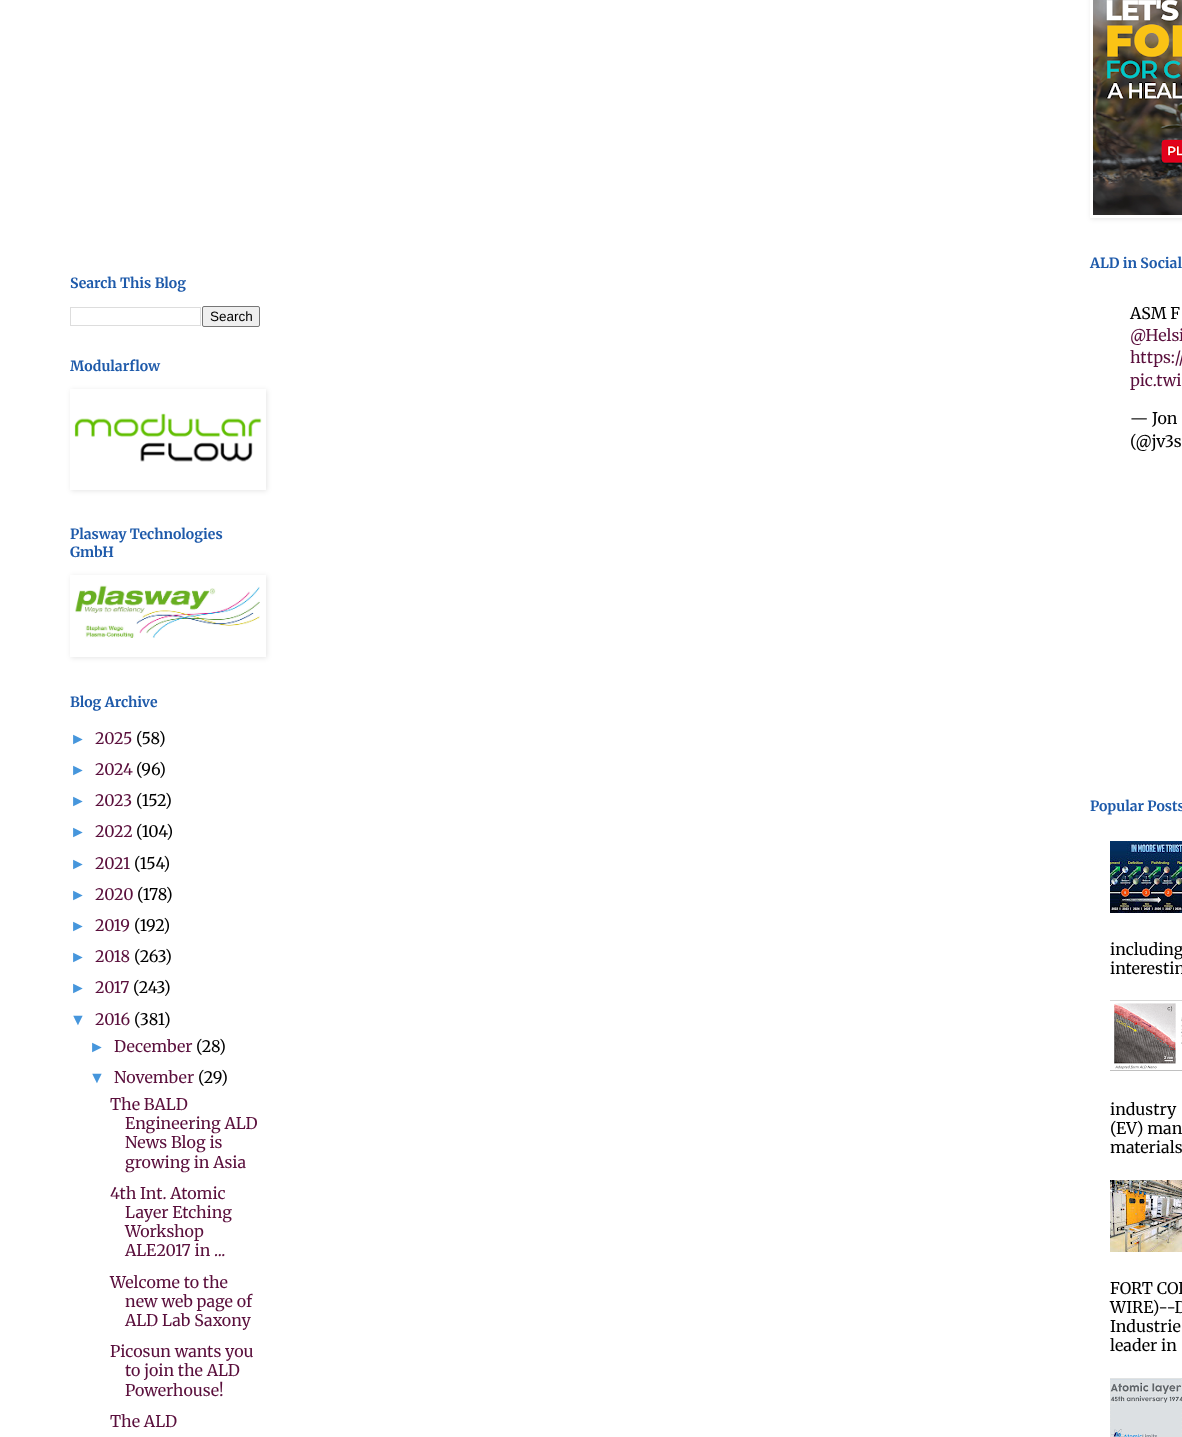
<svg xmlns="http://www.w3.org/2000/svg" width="1182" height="1437">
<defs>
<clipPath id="clip1"><path d="M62 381h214v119h-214zm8 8h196v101h-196z" clip-rule="evenodd"/></clipPath>
<clipPath id="clip2"><path d="M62 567h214v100h-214zm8 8h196v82h-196z" clip-rule="evenodd"/></clipPath>
<clipPath id="clip3"><path d="M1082 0h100v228h-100zm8-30h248v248h-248z" clip-rule="evenodd"/></clipPath>
</defs>
<rect width="100%" height="100%" fill="#fff"/>
<text x="70" y="288" style="font-family:Merriweather;font-size:14px;font-weight:bold;fill:#1e5aaa">Search This Blog</text>
<rect x="70.5" y="307.5" width="130" height="18" fill="none" stroke="#ddd"/>
<rect x="202.5" y="306.5" width="57" height="20" rx="1.5" fill="#efefef" stroke="#767676"/>
<text x="210" y="321" style="font-family:Liberation Sans;font-size:13.5px;fill:#000">Search</text>
<text x="70" y="371" style="font-family:Merriweather;font-size:14px;font-weight:bold;fill:#1e5aaa">Modularflow</text>
<g clip-path="url(#clip1)">
<rect x="71" y="390" width="196" height="101" fill="#0000001a" filter="blur(2.5px)"/>
</g>
<image x="74" y="413" width="188" height="49" href="media/1.png"/>
<text x="70" y="539" style="font-family:Merriweather;font-size:14px;font-weight:bold;fill:#1e5aaa">Plasway Technologies</text>
<text x="70" y="557" style="font-family:Merriweather;font-size:14px;font-weight:bold;fill:#1e5aaa">GmbH</text>
<g clip-path="url(#clip2)">
<rect x="71" y="576" width="196" height="82" fill="#0000001a" filter="blur(2.5px)"/>
</g>
<image x="75" y="585" width="185" height="53" href="media/2.png"/>
<text x="70" y="707" style="font-family:Merriweather;font-size:14px;font-weight:bold;fill:#1e5aaa">Blog Archive</text>
<text x="70" y="744" style="font-family:Liberation Sans;font-size:16px;fill:#4696dc">►</text>
<text x="95" y="744" style="font-family:Merriweather;font-size:16px;fill:#5a0f3c">2025</text>
<text x="136" y="744" style="font-family:Merriweather;font-size:16px;fill:#000">(58)</text>
<text x="70" y="775" style="font-family:Liberation Sans;font-size:16px;fill:#4696dc">►</text>
<text x="95" y="775" style="font-family:Merriweather;font-size:16px;fill:#5a0f3c">2024</text>
<text x="136" y="775" style="font-family:Merriweather;font-size:16px;fill:#000">(96)</text>
<text x="70" y="806" style="font-family:Liberation Sans;font-size:16px;fill:#4696dc">►</text>
<text x="95" y="806" style="font-family:Merriweather;font-size:16px;fill:#5a0f3c">2023</text>
<text x="136" y="806" style="font-family:Merriweather;font-size:16px;fill:#000">(152)</text>
<text x="70" y="837" style="font-family:Liberation Sans;font-size:16px;fill:#4696dc">►</text>
<text x="95" y="837" style="font-family:Merriweather;font-size:16px;fill:#5a0f3c">2022</text>
<text x="136" y="837" style="font-family:Merriweather;font-size:16px;fill:#000">(104)</text>
<text x="70" y="869" style="font-family:Liberation Sans;font-size:16px;fill:#4696dc">►</text>
<text x="95" y="869" style="font-family:Merriweather;font-size:16px;fill:#5a0f3c">2021</text>
<text x="134" y="869" style="font-family:Merriweather;font-size:16px;fill:#000">(154)</text>
<text x="70" y="900" style="font-family:Liberation Sans;font-size:16px;fill:#4696dc">►</text>
<text x="95" y="900" style="font-family:Merriweather;font-size:16px;fill:#5a0f3c">2020</text>
<text x="137" y="900" style="font-family:Merriweather;font-size:16px;fill:#000">(178)</text>
<text x="70" y="931" style="font-family:Liberation Sans;font-size:16px;fill:#4696dc">►</text>
<text x="95" y="931" style="font-family:Merriweather;font-size:16px;fill:#5a0f3c">2019</text>
<text x="134" y="931" style="font-family:Merriweather;font-size:16px;fill:#000">(192)</text>
<text x="70" y="962" style="font-family:Liberation Sans;font-size:16px;fill:#4696dc">►</text>
<text x="95" y="962" style="font-family:Merriweather;font-size:16px;fill:#5a0f3c">2018</text>
<text x="134" y="962" style="font-family:Merriweather;font-size:16px;fill:#000">(263)</text>
<text x="70" y="993" style="font-family:Liberation Sans;font-size:16px;fill:#4696dc">►</text>
<text x="95" y="993" style="font-family:Merriweather;font-size:16px;fill:#5a0f3c">2017</text>
<text x="133" y="993" style="font-family:Merriweather;font-size:16px;fill:#000">(243)</text>
<text x="70" y="1025" style="font-family:Liberation Sans;font-size:16px;fill:#4696dc">▼</text>
<text x="95" y="1025" style="font-family:Merriweather;font-size:16px;fill:#5a0f3c">2016</text>
<text x="134" y="1025" style="font-family:Merriweather;font-size:16px;fill:#000">(381)</text>
<text x="89" y="1052" style="font-family:Liberation Sans;font-size:16px;fill:#4696dc">►</text>
<text x="114" y="1052" style="font-family:Merriweather;font-size:16px;fill:#5a0f3c">December</text>
<text x="196" y="1052" style="font-family:Merriweather;font-size:16px;fill:#000">(28)</text>
<text x="89" y="1083" style="font-family:Liberation Sans;font-size:16px;fill:#4696dc">▼</text>
<text x="114" y="1083" style="font-family:Merriweather;font-size:16px;fill:#5a0f3c">November</text>
<text x="198" y="1083" style="font-family:Merriweather;font-size:16px;fill:#000">(29)</text>
<text x="110" y="1110" style="font-family:Merriweather;font-size:16px;fill:#5a0f3c">The BALD</text>
<text x="125" y="1129" style="font-family:Merriweather;font-size:16px;fill:#5a0f3c">Engineering ALD</text>
<text x="125" y="1148" style="font-family:Merriweather;font-size:16px;fill:#5a0f3c">News Blog is</text>
<text x="125" y="1168" style="font-family:Merriweather;font-size:16px;fill:#5a0f3c">growing in Asia</text>
<text x="110" y="1199" style="font-family:Merriweather;font-size:16px;fill:#5a0f3c">4th Int. Atomic</text>
<text x="125" y="1218" style="font-family:Merriweather;font-size:16px;fill:#5a0f3c">Layer Etching</text>
<text x="125" y="1237" style="font-family:Merriweather;font-size:16px;fill:#5a0f3c">Workshop</text>
<text x="125" y="1256" style="font-family:Merriweather;font-size:16px;fill:#5a0f3c">ALE2017 in ...</text>
<text x="110" y="1288" style="font-family:Merriweather;font-size:16px;fill:#5a0f3c">Welcome to the</text>
<text x="125" y="1307" style="font-family:Merriweather;font-size:16px;fill:#5a0f3c">new web page of</text>
<text x="125" y="1326" style="font-family:Merriweather;font-size:16px;fill:#5a0f3c">ALD Lab Saxony</text>
<text x="110" y="1357" style="font-family:Merriweather;font-size:16px;fill:#5a0f3c">Picosun wants you</text>
<text x="125" y="1376" style="font-family:Merriweather;font-size:16px;fill:#5a0f3c">to join the ALD</text>
<text x="125" y="1396" style="font-family:Merriweather;font-size:16px;fill:#5a0f3c">Powerhouse!</text>
<text x="110" y="1427" style="font-family:Merriweather;font-size:16px;fill:#5a0f3c">The ALD</text>
<g clip-path="url(#clip3)">
<rect x="1091" y="-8" width="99" height="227" fill="#0000001a" filter="blur(2.5px)"/>
</g>
<image x="1093" y="0" width="89" height="215" href="media/3.png"/>
<text x="1090" y="268" style="font-family:Merriweather;font-size:14px;font-weight:bold;fill:#1e5aaa">ALD in Social</text>
<text x="1130" y="319" style="font-family:Merriweather;font-size:16px;fill:#000">ASM F</text>
<text x="1130" y="341" style="font-family:Merriweather;font-size:16px;fill:#5a0f3c">@Helsi</text>
<text x="1130" y="363" style="font-family:Merriweather;font-size:16px;fill:#5a0f3c">https://</text>
<text x="1130" y="386" style="font-family:Merriweather;font-size:16px;fill:#5a0f3c">pic.twi</text>
<text x="1130" y="424" style="font-family:Merriweather;font-size:16px;fill:#000">— Jon</text>
<text x="1130" y="447" style="font-family:Merriweather;font-size:16px;fill:#000">(@jv3s</text>
<text x="1090" y="811" style="font-family:Merriweather;font-size:14px;font-weight:bold;fill:#1e5aaa">Popular Posts</text>
<image x="1110" y="841" width="72" height="72" href="media/4.png"/>
<text x="1110" y="955" style="font-family:Merriweather;font-size:16px;fill:#000">including</text>
<text x="1110" y="974" style="font-family:Merriweather;font-size:16px;fill:#000">interestin</text>
<image x="1110" y="1000" width="72" height="71" href="media/5.png"/>
<text x="1110" y="1115" style="font-family:Merriweather;font-size:16px;fill:#000">industry</text>
<text x="1110" y="1134" style="font-family:Merriweather;font-size:16px;fill:#000">(EV) man</text>
<text x="1110" y="1153" style="font-family:Merriweather;font-size:16px;fill:#000">materials</text>
<image x="1110" y="1180" width="72" height="72" href="media/6.png"/>
<text x="1110" y="1294" style="font-family:Merriweather;font-size:16px;fill:#000">FORT COL</text>
<text x="1110" y="1313" style="font-family:Merriweather;font-size:16px;fill:#000">WIRE)--D</text>
<text x="1110" y="1332" style="font-family:Merriweather;font-size:16px;fill:#000">Industrie</text>
<text x="1110" y="1351" style="font-family:Merriweather;font-size:16px;fill:#000">leader in</text>
<image x="1110" y="1378" width="72" height="59" href="media/7.png"/>
</svg>
